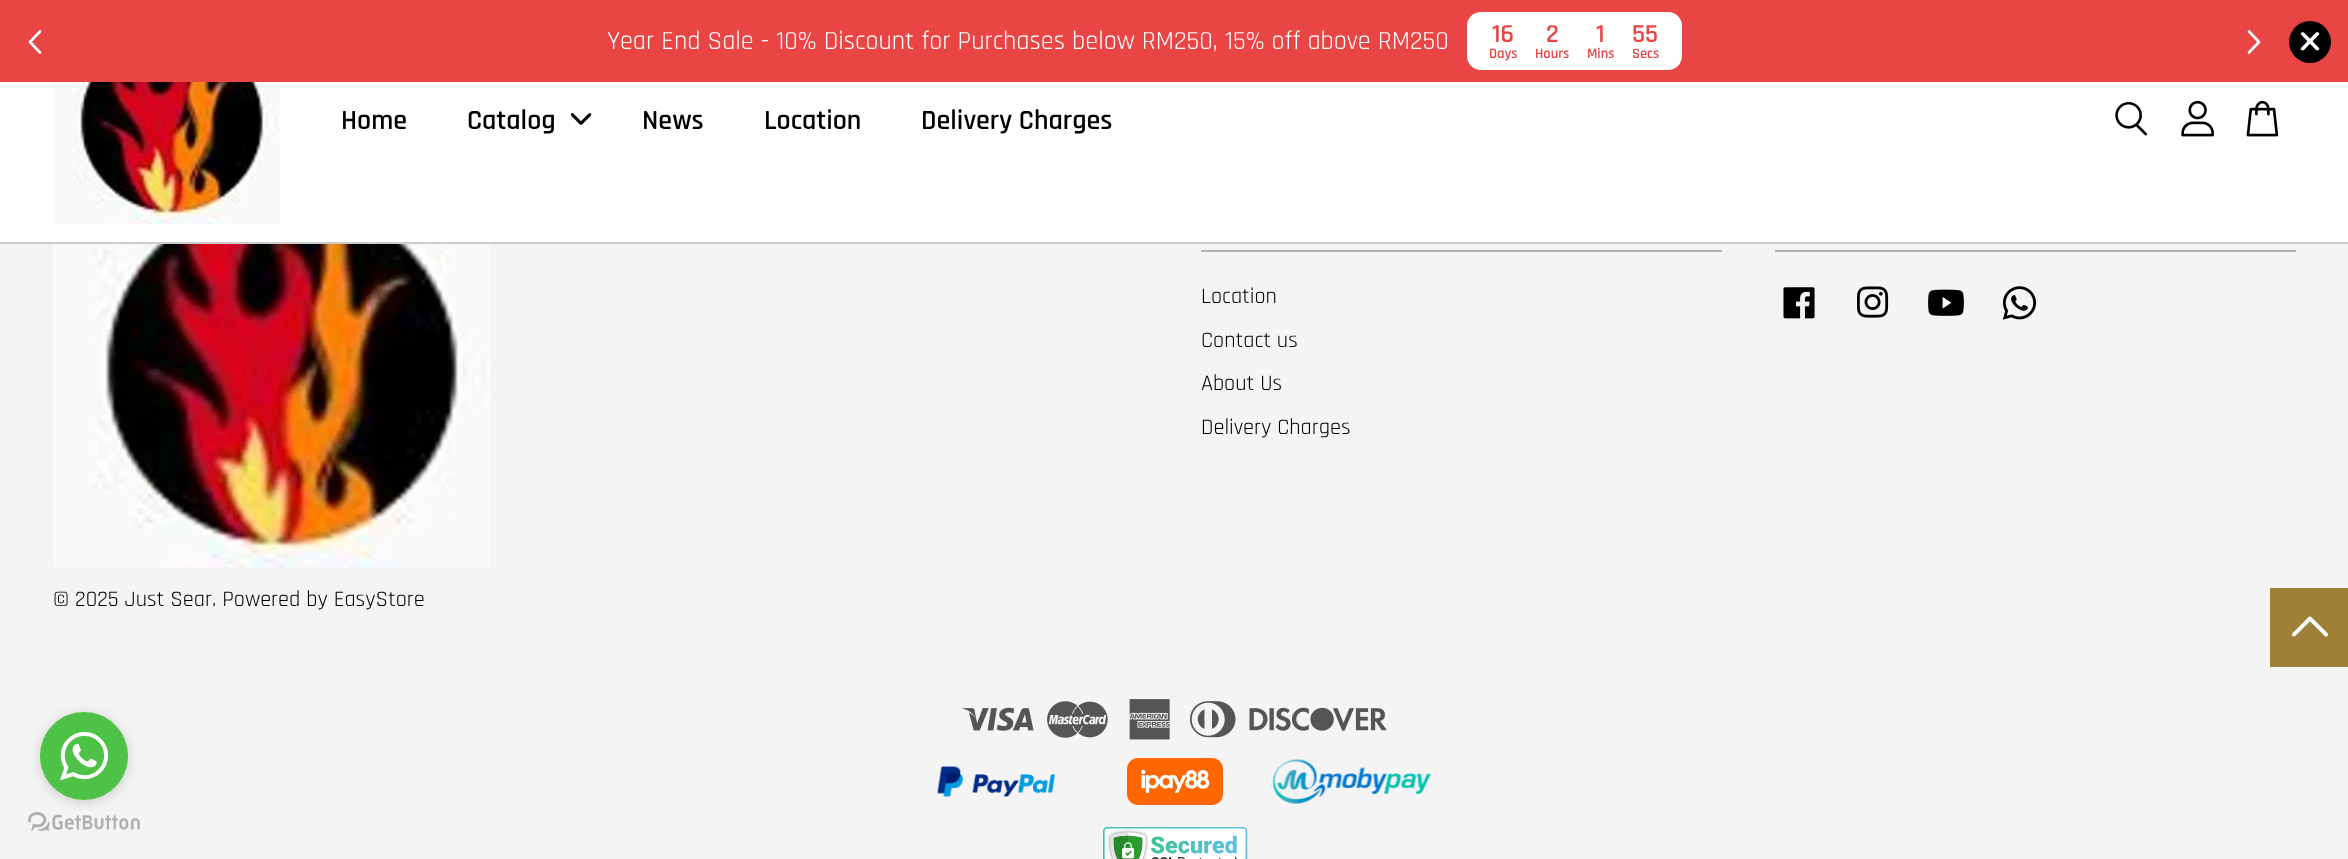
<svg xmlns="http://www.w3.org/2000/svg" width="2348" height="859">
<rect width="100%" height="100%" fill="#f4f4f4"/>
<rect width="2348" height="82" fill="#e94545"/>
<path d="M40 31.5l-10 10.5l10 10.5" fill="none" stroke="#fff" stroke-width="2.6" stroke-linecap="round" stroke-linejoin="round"/>
<text x="607" y="49" style="font-family:Rajdhani;font-size:26.25px;fill:#fff">Year End Sale - 10% Discount for Purchases below RM250, 15% off above RM250</text>
<rect x="1467" y="12" width="215" height="58" rx="14" fill="#fff"/>
<text x="1492" y="42" style="font-family:Rajdhani;font-size:26.25px;font-weight:600;fill:#e94545">16</text>
<text x="1489" y="58" style="font-family:Rajdhani;font-size:14.5px;font-weight:600;fill:#e94545">Days</text>
<text x="1546" y="42" style="font-family:Rajdhani;font-size:26.25px;font-weight:600;fill:#e94545">2</text>
<text x="1535" y="58" style="font-family:Rajdhani;font-size:14.5px;font-weight:600;fill:#e94545">Hours</text>
<text x="1596" y="42" style="font-family:Rajdhani;font-size:26.25px;font-weight:600;fill:#e94545">1</text>
<text x="1587" y="58" style="font-family:Rajdhani;font-size:14.5px;font-weight:600;fill:#e94545">Mins</text>
<text x="1632" y="42" style="font-family:Rajdhani;font-size:26.25px;font-weight:600;fill:#e94545">55</text>
<text x="1632" y="58" style="font-family:Rajdhani;font-size:14.5px;font-weight:600;fill:#e94545">Secs</text>
<path d="M2249 31.5l10 10.5l-10 10.5" fill="none" stroke="#fff" stroke-width="2.6" stroke-linecap="round" stroke-linejoin="round"/>
<circle cx="2310" cy="42" r="21" fill="#000"/>
<path d="M2318.5 32.5c1 1 1 2 0 2.5l-14.5 15c-1 .5-2 .5-2.5 0c-1-.5-1-2 0-2.5l14.5-15c1-.5 2-.5 2.5 0z" fill="#fff"/>
<path d="M2301.5 32.5c.5-.5 1.5-.5 2.5 0l14.5 15c1 .5 1 2 0 2.5c-.5 .5-1.5 .5-2.5 0l-14.5-15c-1-.5-1-1.5 0-2.5z" fill="#fff"/>
<rect y="82" width="2348" height="160" fill="#fff"/>
<rect y="242" width="2348" height="2" fill="#ccc"/>
<image x="53" y="82" width="227" height="142" href="media/1.png"/>
<text x="341" y="129" style="font-family:Rajdhani;font-size:28px;font-weight:600;fill:#000">Home</text>
<text x="467" y="129" style="font-family:Rajdhani;font-size:28px;font-weight:600;fill:#000">Catalog</text>
<image x="571" y="113" width="21" height="12" href="media/2.png"/>
<text x="642" y="129" style="font-family:Rajdhani;font-size:28px;font-weight:600;fill:#000">News</text>
<text x="764" y="129" style="font-family:Rajdhani;font-size:28px;font-weight:600;fill:#000">Location</text>
<text x="921" y="129" style="font-family:Rajdhani;font-size:28px;font-weight:600;fill:#000">Delivery Charges</text>
<image x="2115" y="102" width="33" height="34" href="media/3.png"/>
<image x="2181" y="100" width="33" height="37" href="media/4.png"/>
<image x="2246" y="100" width="33" height="37" href="media/5.png"/>
<rect x="1201" y="250" width="521" height="2" fill="#b1b1b1"/>
<text x="1201" y="303" style="font-family:Rajdhani;font-size:22.3px;fill:#000">Location</text>
<text x="1201" y="347" style="font-family:Rajdhani;font-size:22.3px;fill:#000">Contact us</text>
<text x="1201" y="390" style="font-family:Rajdhani;font-size:22.3px;fill:#000">About Us</text>
<text x="1201" y="434" style="font-family:Rajdhani;font-size:22.3px;fill:#000">Delivery Charges</text>
<rect x="1775" y="250" width="521" height="2" fill="#b1b1b1"/>
<image x="1783" y="287" width="32" height="32" href="media/6.png"/>
<image x="1857" y="286" width="32" height="32" href="media/7.png"/>
<image x="1928" y="289" width="36" height="27" href="media/8.png"/>
<image x="2002" y="286" width="35" height="34" href="media/9.png"/>
<image x="53" y="244" width="437" height="324" href="media/10.png"/>
<text x="53" y="606" style="font-family:Rajdhani;font-size:22.3px;fill:#000">© 2025 Just Sear. Powered by EasyStore</text>
<image x="962" y="707" width="72" height="24" href="media/11.png"/>
<image x="1047" y="701" width="61" height="37" href="media/12.png"/>
<image x="1129" y="699" width="41" height="41" href="media/13.png"/>
<image x="1190" y="701" width="46" height="37" href="media/14.png"/>
<image x="1249" y="707" width="138" height="24" href="media/15.png"/>
<image x="937" y="766" width="118" height="31" href="media/16.png"/>
<image x="1127" y="758" width="96" height="47" href="media/17.png"/>
<image x="1272" y="759" width="160" height="45" href="media/18.png"/>
<image x="1103" y="827" width="145" height="32" href="media/19.png"/>
<rect x="2270" y="588" width="78" height="79" fill="#9e8137"/>
<image x="2292" y="616" width="36" height="21" href="media/20.png"/>
<image x="28" y="812" width="112" height="19" href="media/22.png"/>
<rect x="40" y="714" width="88" height="88" rx="44" fill="#88888866" filter="blur(6px)"/>
<circle cx="84" cy="756" r="44" fill="#4dc247"/>
<image x="60" y="731" width="49" height="50" href="media/21.png"/>
</svg>
